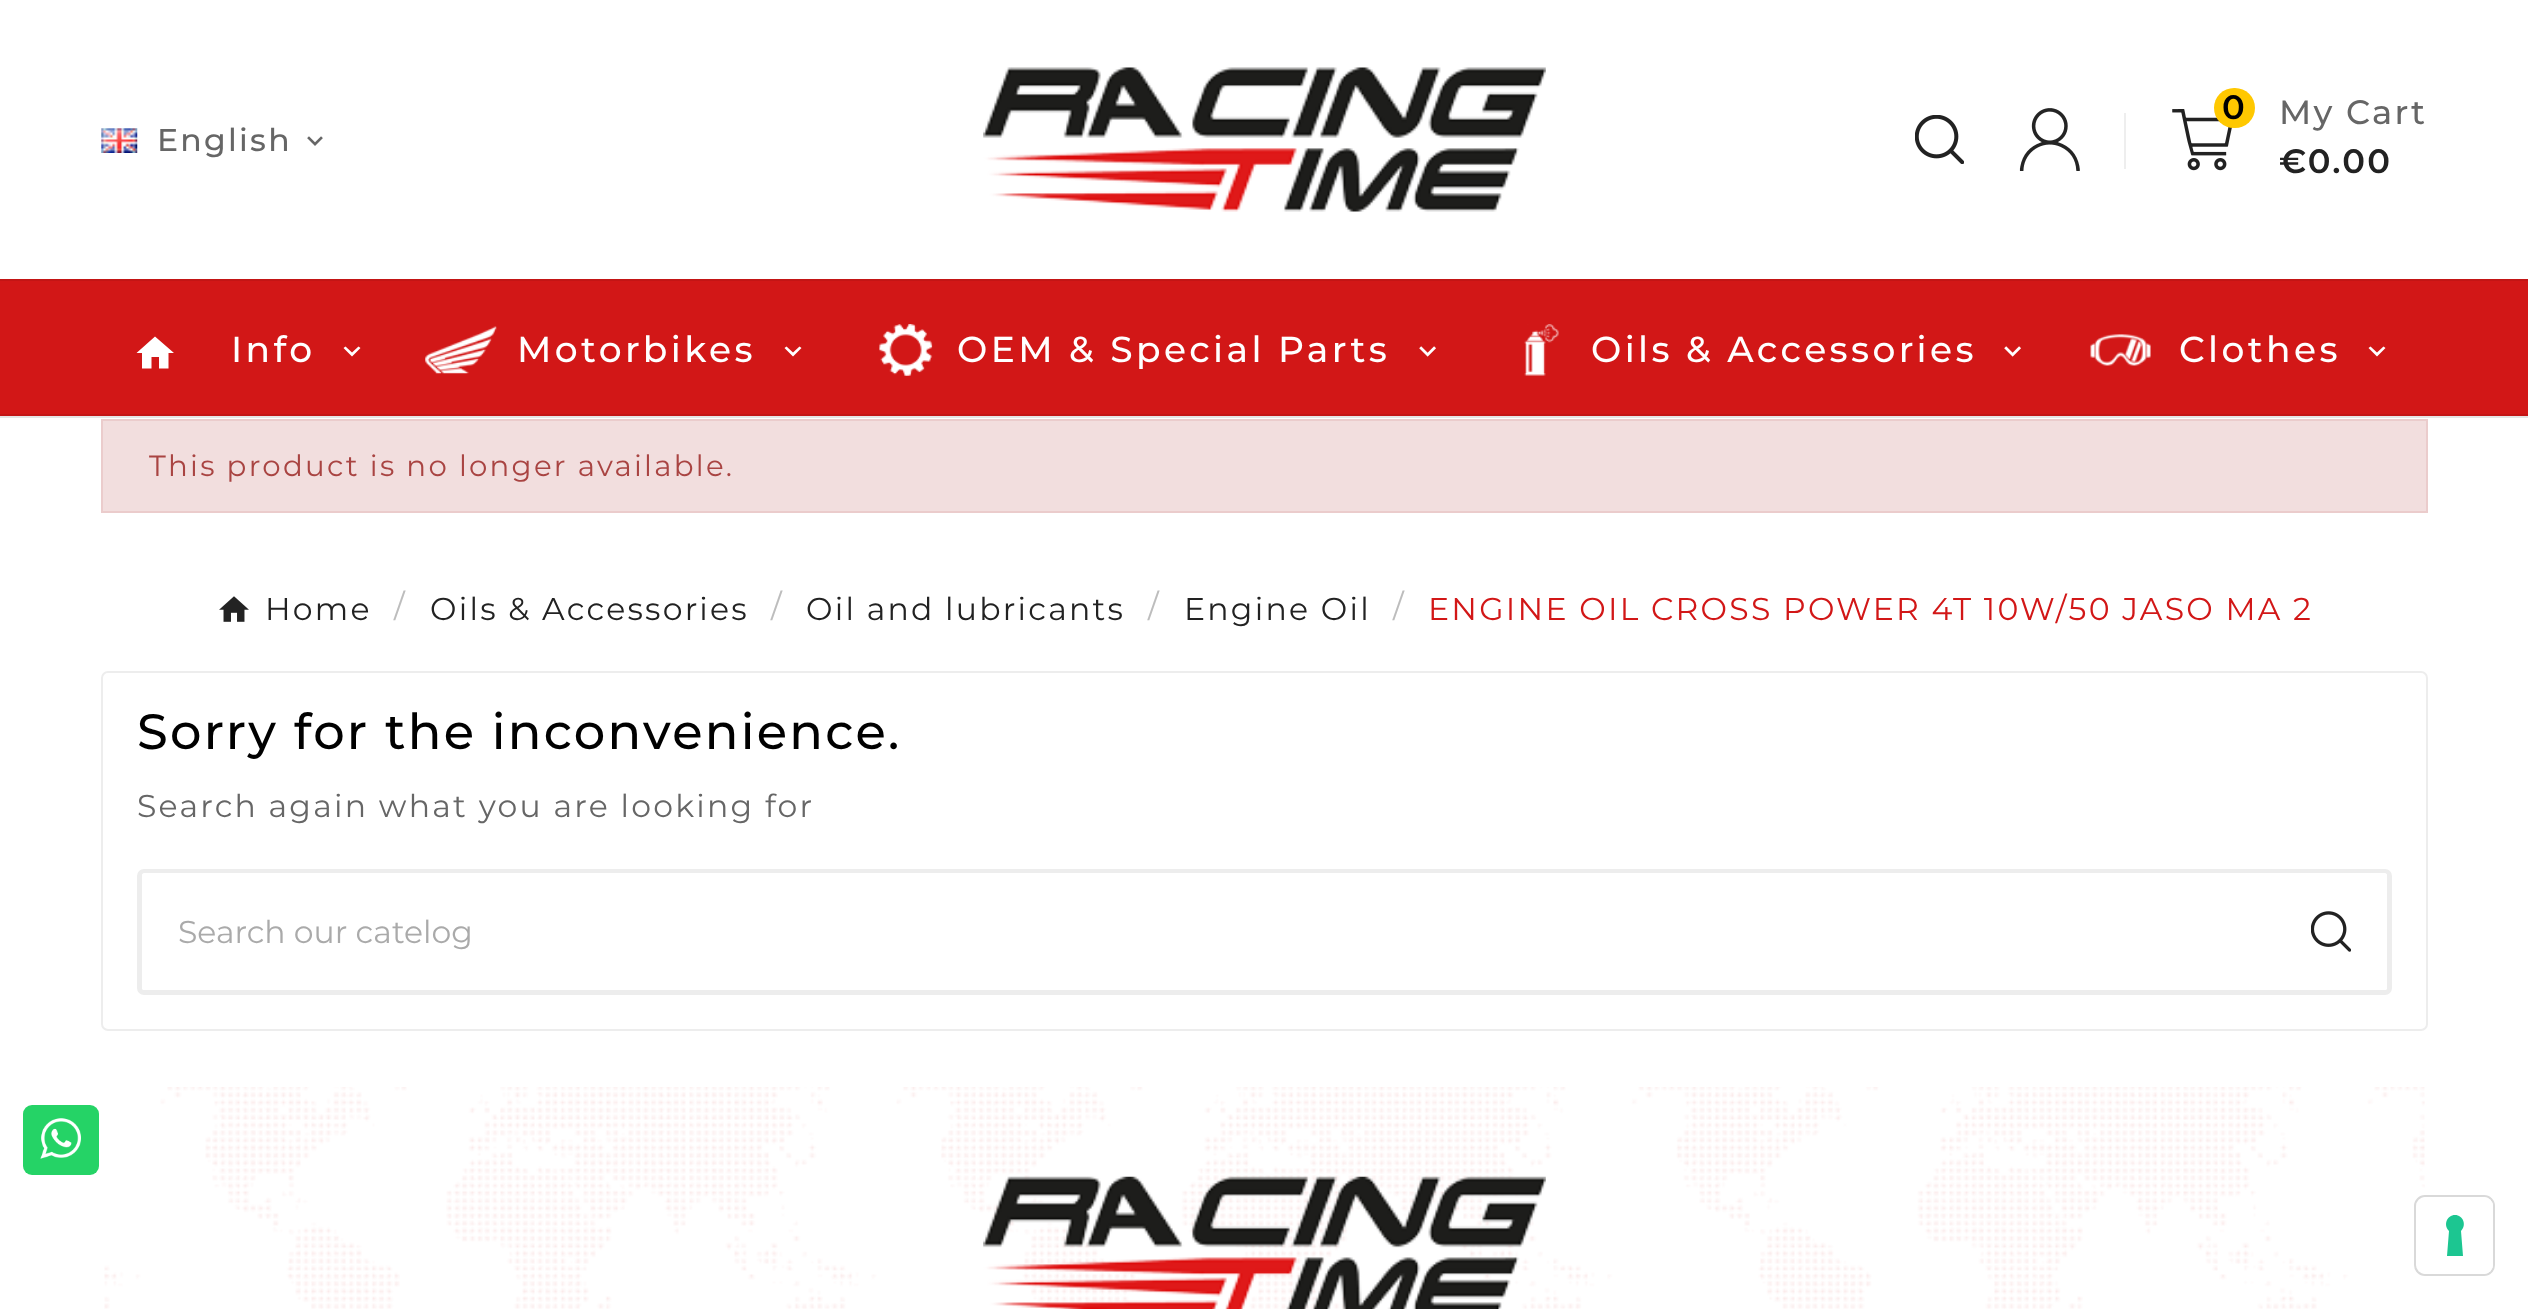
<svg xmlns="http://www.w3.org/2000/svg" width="2528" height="1309">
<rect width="100%" height="100%" fill="#fff"/>
<rect y="416" width="2528" height="2" fill="#e5e5e5"/>
<image x="101" y="128" width="37" height="25" href="media/1.png"/>
<text x="157" y="151" style="font-family:Montserrat;font-size:31.5px;font-weight:500;letter-spacing:2.25px;fill:#666">English</text>
<image x="307" y="136" width="16" height="10" href="media/2.png"/>
<image x="983" y="67" width="563" height="145" href="media/3.png"/>
<image x="1915" y="115" width="49" height="49" href="media/4.png"/>
<image x="2019" y="108" width="61" height="63" href="media/5.png"/>
<rect x="2124" y="113" width="2" height="56" fill="#eee"/>
<image x="2172" y="109" width="60" height="62" href="media/6.png"/>
<rect x="2214" y="88" width="41" height="40" rx="20" fill="#ffc800"/>
<text x="2222" y="119" style="font-family:Montserrat;font-size:33.75px;font-weight:600;letter-spacing:2.25px;fill:#000">0</text>
<text x="2279" y="124" style="font-family:Montserrat;font-size:33.75px;font-weight:500;letter-spacing:2.25px;fill:#666">My Cart</text>
<text x="2279" y="173" style="font-family:Montserrat;font-size:33.75px;font-weight:600;letter-spacing:2.25px;fill:#222">€0.00</text>
<rect y="281" width="2528" height="133" fill="#d21717"/>
<rect y="279" width="2528" height="2" fill="#c31515"/>
<rect y="414" width="2528" height="2" fill="#c31515"/>
<path d="M151.5 368.5h-9.5v-15.5h-5.5l18.5-16.5l19 16.5h-5.5v15.5h-9.5v-11.5h-7.5z" fill="#fff"/>
<text x="231" y="362" style="font-family:Montserrat;font-size:36px;font-weight:500;letter-spacing:3.4px;fill:#fff">Info</text>
<path d="M345.5 346.5l6.5 6l6.5-6l2 1.5l-8.5 8.5l-8.5-8.5z" fill="#fff"/>
<image x="425" y="326" width="72" height="48" href="media/7.png"/>
<text x="517" y="362" style="font-family:Montserrat;font-size:36px;font-weight:500;letter-spacing:3.4px;fill:#fff">Motorbikes</text>
<path d="M786.5 346.5l6.5 6l6.5-6l2 1.5l-8.5 8.5l-8.5-8.5z" fill="#fff"/>
<image x="879" y="324" width="54" height="52" href="media/8.png"/>
<text x="957" y="362" style="font-family:Montserrat;font-size:36px;font-weight:500;letter-spacing:3.4px;fill:#fff">OEM &amp; Special Parts</text>
<image x="1419" y="346" width="17" height="11" href="media/9.png"/>
<image x="1524" y="324" width="35" height="52" href="media/10.png"/>
<text x="1591" y="362" style="font-family:Montserrat;font-size:36px;font-weight:500;letter-spacing:3.4px;fill:#fff">Oils &amp; Accessories</text>
<image x="2004" y="346" width="17" height="11" href="media/9.png"/>
<image x="2090" y="334" width="61" height="32" href="media/11.png"/>
<text x="2179" y="362" style="font-family:Montserrat;font-size:36px;font-weight:500;letter-spacing:3.4px;fill:#fff">Clothes</text>
<path d="M2370.5 346.5l6.5 6l6.5-6l2 1.5l-8.5 8.5l-8.5-8.5z" fill="#fff"/>
<rect x="102" y="420" width="2325" height="92" fill="#f2dede" stroke="#ebcccc" stroke-width="2"/>
<text x="149" y="476" style="font-family:Montserrat;font-size:29.25px;letter-spacing:2.25px;fill:#a94442">This product is no longer available.</text>
<image x="219" y="596" width="30" height="26" href="media/12.png"/>
<text x="265" y="620" style="font-family:Montserrat;font-size:31.5px;letter-spacing:2.25px;fill:#222">Home</text>
<text x="394" y="617" style="font-family:Montserrat;font-size:31.5px;letter-spacing:2.25px;fill:#bdbdbd">/</text>
<text x="430" y="620" style="font-family:Montserrat;font-size:31.5px;letter-spacing:2.25px;fill:#222">Oils &amp; Accessories</text>
<text x="771" y="617" style="font-family:Montserrat;font-size:31.5px;letter-spacing:2.25px;fill:#bdbdbd">/</text>
<text x="806" y="620" style="font-family:Montserrat;font-size:31.5px;letter-spacing:2.25px;fill:#222">Oil and lubricants</text>
<text x="1148" y="617" style="font-family:Montserrat;font-size:31.5px;letter-spacing:2.25px;fill:#bdbdbd">/</text>
<text x="1184" y="620" style="font-family:Montserrat;font-size:31.5px;letter-spacing:2.25px;fill:#222">Engine Oil</text>
<text x="1393" y="617" style="font-family:Montserrat;font-size:31.5px;letter-spacing:2.25px;fill:#bdbdbd">/</text>
<text x="1428" y="620" style="font-family:Montserrat;font-size:31.5px;letter-spacing:2.25px;fill:#d21717">ENGINE OIL CROSS POWER 4T 10W/50 JASO MA 2</text>
<rect x="102" y="672" width="2325" height="358" rx="6" fill="none" stroke="#ededed" stroke-width="2"/>
<text x="137" y="749" style="font-family:Montserrat;font-size:49.5px;font-weight:500;letter-spacing:2.25px;fill:#000">Sorry for the inconvenience.</text>
<text x="137" y="817" style="font-family:Montserrat;font-size:31.5px;letter-spacing:2.25px;fill:#666">Search again what you are looking for</text>
<rect x="139.5" y="871.5" width="2250" height="121" rx="4.5" fill="none" stroke="#ededed" stroke-width="5"/>
<path d="M144 873h2131v117h-2131c-1 0-2-1-2-2v-113c0-1 1-2 2-2z" fill="#fff"/>
<text x="178" y="943" style="font-family:Montserrat;font-size:31.5px;fill:#aaa">Search our catelog</text>
<path d="M2275 873h110c1 0 2 1 2 2v113c0 1-1 2-2 2h-110z" fill="#fff"/>
<image x="2311" y="911" width="40" height="41" href="media/13.png"/>
<image x="104" y="1087" width="2321" height="222" href="media/14.png"/>
<image x="983" y="1176" width="563" height="133" href="media/15.png"/>
<rect x="23" y="1105" width="76" height="70" rx="9" fill="#25d366"/>
<image x="40" y="1118" width="41" height="41" href="media/16.png"/>
<rect x="2415" y="1196" width="79" height="79" rx="10" fill="none" stroke="#d9d9d9" stroke-width="2"/>
<rect x="2417" y="1197" width="76" height="77" rx="9" fill="#fff"/>
<path d="M2455 1215c8 0 12 10 6 16l2 25h-16l2-25c-6-6-2-16 6-16z" fill="#1cc691" fill-rule="evenodd"/>
</svg>
